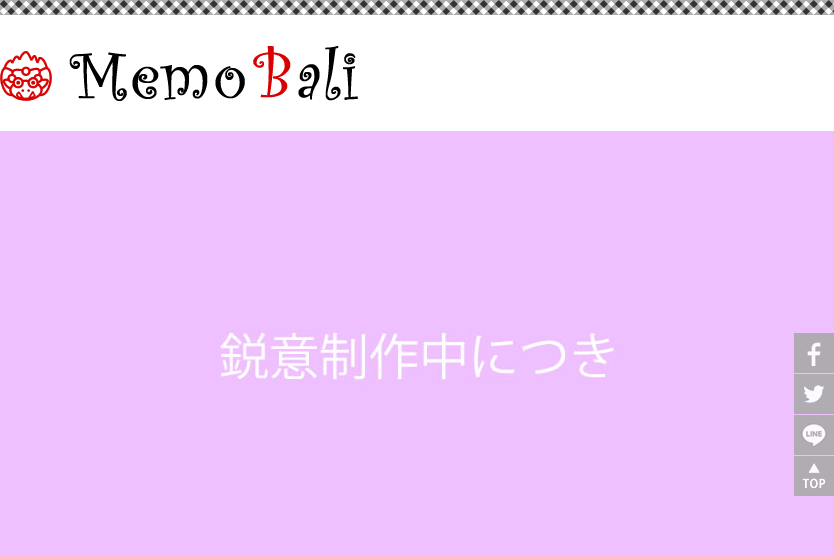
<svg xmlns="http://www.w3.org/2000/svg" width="834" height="555">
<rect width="100%" height="100%" fill="#fff"/>
<image x="0" y="0" width="834" height="15" href="media/1.png"/>
<image x="0" y="46" width="358" height="55" href="media/2.png"/>
<image x="0" y="131" width="834" height="424" href="media/3.png"/>
<image x="794" y="333" width="40" height="40" href="media/4.png"/>
<image x="794" y="374" width="40" height="40" href="media/5.png"/>
<image x="794" y="415" width="40" height="40" href="media/6.png"/>
<image x="794" y="456" width="40" height="40" href="media/7.png"/>
</svg>
